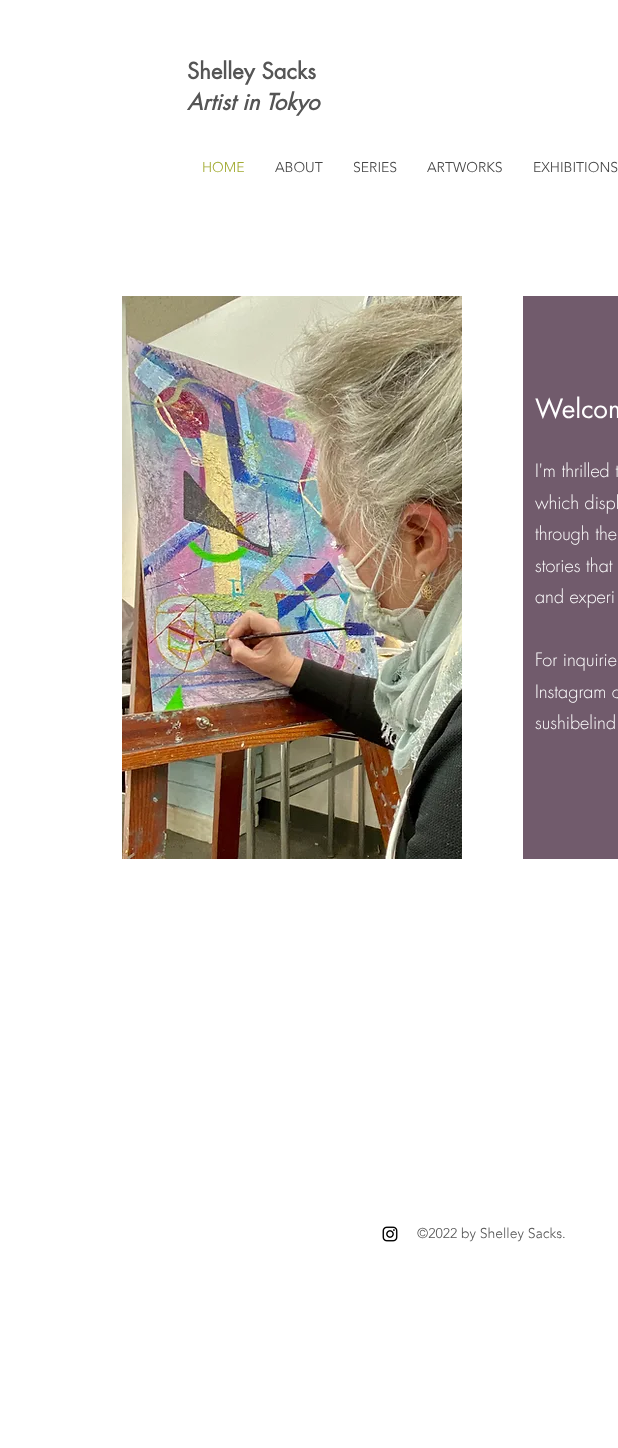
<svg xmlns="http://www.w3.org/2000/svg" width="618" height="1448">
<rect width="100%" height="100%" fill="#fff"/>
<text x="187" y="79" style="font-family:futura;font-size:22px;font-weight:bold;fill:#555">Shelley Sacks</text>
<text x="187" y="110" style="font-family:futura;font-size:22px;font-weight:bold;font-style:italic;fill:#555">Artist in Tokyo</text>
<text x="202" y="172" style="font-family:'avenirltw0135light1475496';font-size:14px;font-weight:300;fill:#a1aa31">HOME</text>
<text x="275" y="172" style="font-family:'avenirltw0135light1475496';font-size:14px;font-weight:300;fill:#444">ABOUT</text>
<text x="353" y="172" style="font-family:'avenirltw0135light1475496';font-size:14px;font-weight:300;fill:#444">SERIES</text>
<text x="427" y="172" style="font-family:'avenirltw0135light1475496';font-size:14px;font-weight:300;fill:#444">ARTWORKS</text>
<text x="533" y="172" style="font-family:'avenirltw0135light1475496';font-size:14px;font-weight:300;fill:#444">EXHIBITIONS</text>
<image x="122" y="296" width="340" height="563" href="media/1.png"/>
<rect x="523" y="296" width="95" height="563" fill="#715b6c"/>
<text x="535" y="418" style="font-family:futura;font-size:26px;fill:#fff">Welcom</text>
<text x="535" y="477" style="font-family:futura;font-size:18px;font-weight:300;fill:#fff">I'm thrilled t</text>
<text x="535" y="509" style="font-family:futura;font-size:18px;font-weight:300;fill:#fff">which displ</text>
<text x="535" y="540" style="font-family:futura;font-size:18px;font-weight:300;fill:#fff">through the</text>
<text x="535" y="572" style="font-family:futura;font-size:18px;font-weight:300;fill:#fff">stories that</text>
<text x="535" y="603" style="font-family:futura;font-size:18px;font-weight:300;fill:#fff">and experi</text>
<text x="535" y="666" style="font-family:futura;font-size:18px;font-weight:300;fill:#fff">For inquirie</text>
<text x="535" y="698" style="font-family:futura;font-size:18px;font-weight:300;fill:#fff">Instagram o</text>
<text x="535" y="729" style="font-family:futura;font-size:18px;font-weight:300;fill:#fff">sushibelind</text>
<image x="382" y="1226" width="16" height="16" href="media/2.png"/>
<text x="417" y="1238" style="font-family:'avenirltw0135light1475496';font-size:14px;font-weight:300;fill:#555">©2022 by Shelley Sacks.</text>
</svg>
